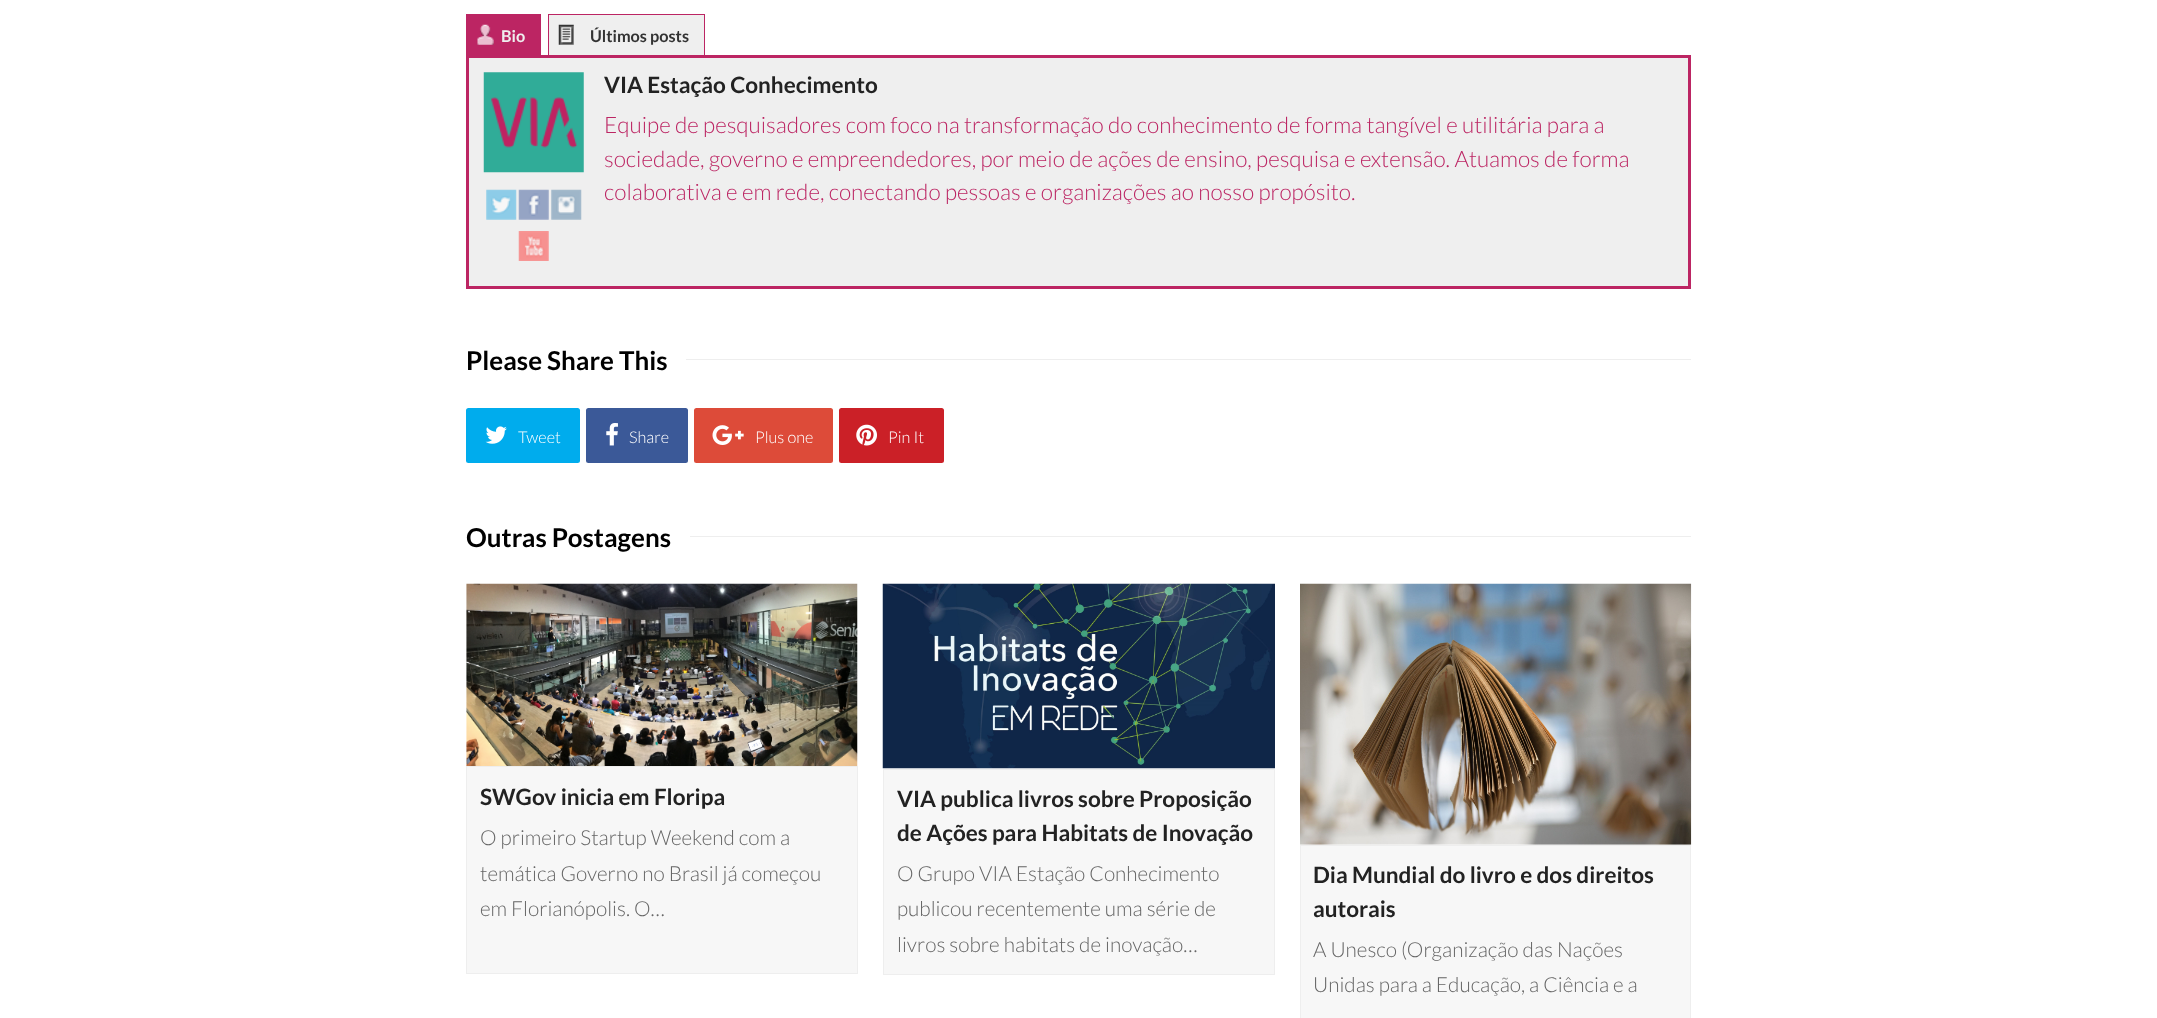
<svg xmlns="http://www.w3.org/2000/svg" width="2157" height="1018">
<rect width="100%" height="100%" fill="#fff"/>
<rect x="466" y="14" width="75" height="41" fill="#bc2563"/>
<image x="477" y="24" width="17" height="21" href="media/1.png"/>
<text x="501" y="42" style="font-family:Lato;font-size:16.25px;font-weight:bold;fill:#efefef">Bio</text>
<rect x="549" y="15" width="155" height="40" fill="#efefef"/>
<image x="558" y="24" width="16" height="21" href="media/2.png"/>
<rect x="548" y="14" width="157" height="1" fill="#bc2563"/>
<rect x="704" y="14" width="1" height="41" fill="#bc2563"/>
<rect x="548" y="14" width="1" height="41" fill="#bc2563"/>
<text x="590" y="42" style="font-family:Lato;font-size:16.25px;font-weight:bold;fill:#333">Últimos posts</text>
<rect x="467.5" y="56.5" width="1222" height="231" fill="#efefef" stroke="#bc2563" stroke-width="3"/>
<image x="483" y="72" width="101" height="101" href="media/3.png"/>
<image x="486" y="189" width="31" height="31" href="media/4.png"/>
<image x="518" y="189" width="31" height="31" href="media/5.png"/>
<image x="551" y="189" width="31" height="31" href="media/6.png"/>
<image x="518" y="231" width="31" height="30" href="media/7.png"/>
<text x="604" y="93" style="font-family:Lato;font-size:22.5px;font-weight:bold;fill:#222">VIA Estação Conhecimento</text>
<text x="604" y="133" style="font-family:Lato;font-size:22.5px;font-weight:300;fill:#bc2563">Equipe de pesquisadores com foco na transformação do conhecimento de forma tangível e utilitária para a</text>
<text x="604" y="167" style="font-family:Lato;font-size:22.5px;font-weight:300;fill:#bc2563">sociedade, governo e empreendedores, por meio de ações de ensino, pesquisa e extensão. Atuamos de forma</text>
<text x="604" y="200" style="font-family:Lato;font-size:22.5px;font-weight:300;fill:#bc2563">colaborativa e em rede, conectando pessoas e organizações ao nosso propósito.</text>
<text x="466" y="370" style="font-family:Lato;font-size:26px;font-weight:bold;fill:#000">Please Share This</text>
<rect x="686" y="359" width="1005" height="1" fill="#eee"/>
<rect x="466" y="408" width="114" height="55" rx="2.5" fill="#00aced"/>
<image x="485" y="426" width="22" height="18" href="media/8.png"/>
<text x="518" y="443" style="font-family:Lato;font-size:16.25px;font-weight:300;fill:#fff">Tweet</text>
<rect x="586" y="408" width="102" height="55" rx="2.5" fill="#3b5998"/>
<image x="606" y="423" width="12" height="23" href="media/9.png"/>
<text x="629" y="443" style="font-family:Lato;font-size:16.25px;font-weight:300;fill:#fff">Share</text>
<rect x="694" y="408" width="139" height="55" rx="2.5" fill="#dd4b39"/>
<image x="712" y="425" width="32" height="20" href="media/10.png"/>
<text x="755" y="443" style="font-family:Lato;font-size:16.25px;font-weight:300;fill:#fff">Plus one</text>
<rect x="839" y="408" width="105" height="55" rx="2.5" fill="#cb2027"/>
<image x="856" y="424" width="21" height="22" href="media/11.png"/>
<text x="888" y="443" style="font-family:Lato;font-size:16.25px;font-weight:300;fill:#fff">Pin It</text>
<text x="466" y="547" style="font-family:Lato;font-size:26px;font-weight:bold;fill:#000">Outras Postagens</text>
<rect x="690" y="536" width="1001" height="1" fill="#eee"/>
<image x="466" y="583" width="392" height="183" href="media/12.png"/>
<rect x="466.5" y="766.5" width="391" height="207" fill="#f7f7f7" stroke="#eee"/>
<text x="480" y="805" style="font-family:Lato;font-size:22.5px;font-weight:bold;fill:#222">SWGov inicia em Floripa</text>
<text x="480" y="845" style="font-family:Lato;font-size:20.75px;font-weight:300;fill:#666">O primeiro Startup Weekend com a</text>
<text x="480" y="881" style="font-family:Lato;font-size:20.75px;font-weight:300;fill:#666">temática Governo no Brasil já começou</text>
<text x="480" y="916" style="font-family:Lato;font-size:20.75px;font-weight:300;fill:#666">em Florianópolis. O…</text>
<image x="882" y="583" width="393" height="186" href="media/13.png"/>
<rect x="883.5" y="769.5" width="391" height="205" fill="#f7f7f7" stroke="#eee"/>
<text x="897" y="807" style="font-family:Lato;font-size:22.5px;font-weight:bold;fill:#222">VIA publica livros sobre Proposição</text>
<text x="897" y="841" style="font-family:Lato;font-size:22.5px;font-weight:bold;fill:#222">de Ações para Habitats de Inovação</text>
<text x="897" y="881" style="font-family:Lato;font-size:20.75px;font-weight:300;fill:#666">O Grupo VIA Estação Conhecimento</text>
<text x="897" y="916" style="font-family:Lato;font-size:20.75px;font-weight:300;fill:#666">publicou recentemente uma série de</text>
<text x="897" y="952" style="font-family:Lato;font-size:20.75px;font-weight:300;fill:#666">livros sobre habitats de inovação…</text>
<image x="1300" y="583" width="392" height="262" href="media/14.png"/>
<rect x="1300.5" y="845.5" width="390" height="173" fill="#f7f7f7" stroke="#eee"/>
<text x="1313" y="883" style="font-family:Lato;font-size:22.5px;font-weight:bold;fill:#222">Dia Mundial do livro e dos direitos</text>
<text x="1313" y="917" style="font-family:Lato;font-size:22.5px;font-weight:bold;fill:#222">autorais</text>
<text x="1313" y="957" style="font-family:Lato;font-size:20.75px;font-weight:300;fill:#666">A Unesco (Organização das Nações</text>
<text x="1313" y="992" style="font-family:Lato;font-size:20.75px;font-weight:300;fill:#666">Unidas para a Educação, a Ciência e a</text>
</svg>
